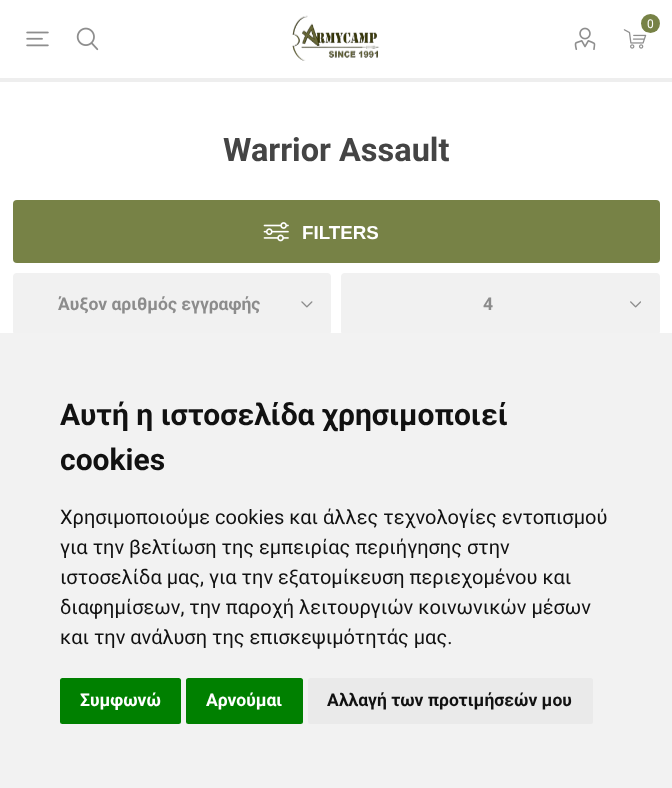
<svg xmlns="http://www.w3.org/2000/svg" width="672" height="788">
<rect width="100%" height="100%" fill="#fff"/>
<rect y="78" width="672" height="4" fill="#eee"/>
<image x="292" y="15" width="88" height="46" href="media/1.png"/>
<image x="623" y="29" width="24" height="20" href="media/2.png"/>
<circle cx="650.5" cy="23.5" r="9.5" fill="#778246"/>
<text x="647" y="28" style="font-family:Roboto;font-size:12px;fill:#fff">0</text>
<image x="26" y="31" width="23" height="16" href="media/3.png"/>
<image x="76" y="27" width="23" height="24" href="media/4.png"/>
<image x="574" y="27" width="22" height="23" href="media/5.png"/>
<text x="223" y="161" style="font-family:Roboto;font-size:32.5px;font-weight:bold;fill:#444">Warrior Assault</text>
<rect x="13" y="200" width="647" height="63" rx="4" fill="#778246"/>
<image x="263" y="222" width="26" height="20" href="media/6.png"/>
<text x="302" y="239" style="font-family:Liberation Sans;font-size:18.75px;font-weight:bold;fill:#fff">FILTERS</text>
<rect x="13" y="273" width="318" height="62" rx="4" fill="#f1f1f1"/>
<image x="301" y="301" width="12" height="7" href="media/7.png"/>
<text x="58" y="310" style="font-family:Roboto;font-size:17.5px;font-weight:bold;fill:#8c8c8c">Άυξον αριθμός εγγραφής</text>
<rect x="341" y="273" width="319" height="62" rx="4" fill="#f1f1f1"/>
<image x="630" y="301" width="11" height="7" href="media/8.png"/>
<text x="483" y="310" style="font-family:Roboto;font-size:17.5px;font-weight:bold;fill:#8c8c8c">4</text>
<rect y="333" width="672" height="455" fill="#f2f2f2"/>
<text x="60" y="425" style="font-family:Roboto;font-size:30px;font-weight:bold;fill:#111">Αυτή η ιστοσελίδα χρησιμοποιεί</text>
<text x="60" y="470" style="font-family:Roboto;font-size:30px;font-weight:bold;fill:#111">cookies</text>
<text x="60" y="524" style="font-family:Roboto;font-size:20px;fill:#111">Χρησιμοποιούμε cookies και άλλες τεχνολογίες εντοπισμού</text>
<text x="60" y="554" style="font-family:Roboto;font-size:20px;fill:#111">για την βελτίωση της εμπειρίας περιήγησης στην</text>
<text x="60" y="584" style="font-family:Roboto;font-size:20px;fill:#111">ιστοσελίδα μας, για την εξατομίκευση περιεχομένου και</text>
<text x="60" y="614" style="font-family:Roboto;font-size:20px;fill:#111">διαφημίσεων, την παροχή λειτουργιών κοινωνικών μέσων</text>
<text x="60" y="644" style="font-family:Roboto;font-size:20px;fill:#111">και την ανάλυση της επισκεψιμότητάς μας.</text>
<rect x="60" y="678" width="121" height="46" rx="2.5" fill="#008000"/>
<text x="80" y="706" style="font-family:Roboto;font-size:17.5px;font-weight:bold;fill:#fff">Συμφωνώ</text>
<rect x="186" y="678" width="117" height="46" rx="2.5" fill="#008000"/>
<text x="206" y="706" style="font-family:Roboto;font-size:17.5px;font-weight:bold;fill:#fff">Αρνούμαι</text>
<rect x="308" y="678" width="285" height="46" rx="2.5" fill="#eaeaea"/>
<text x="327" y="706" style="font-family:Roboto;font-size:17.5px;font-weight:bold;fill:#111">Αλλαγή των προτιμήσεών μου</text>
</svg>
